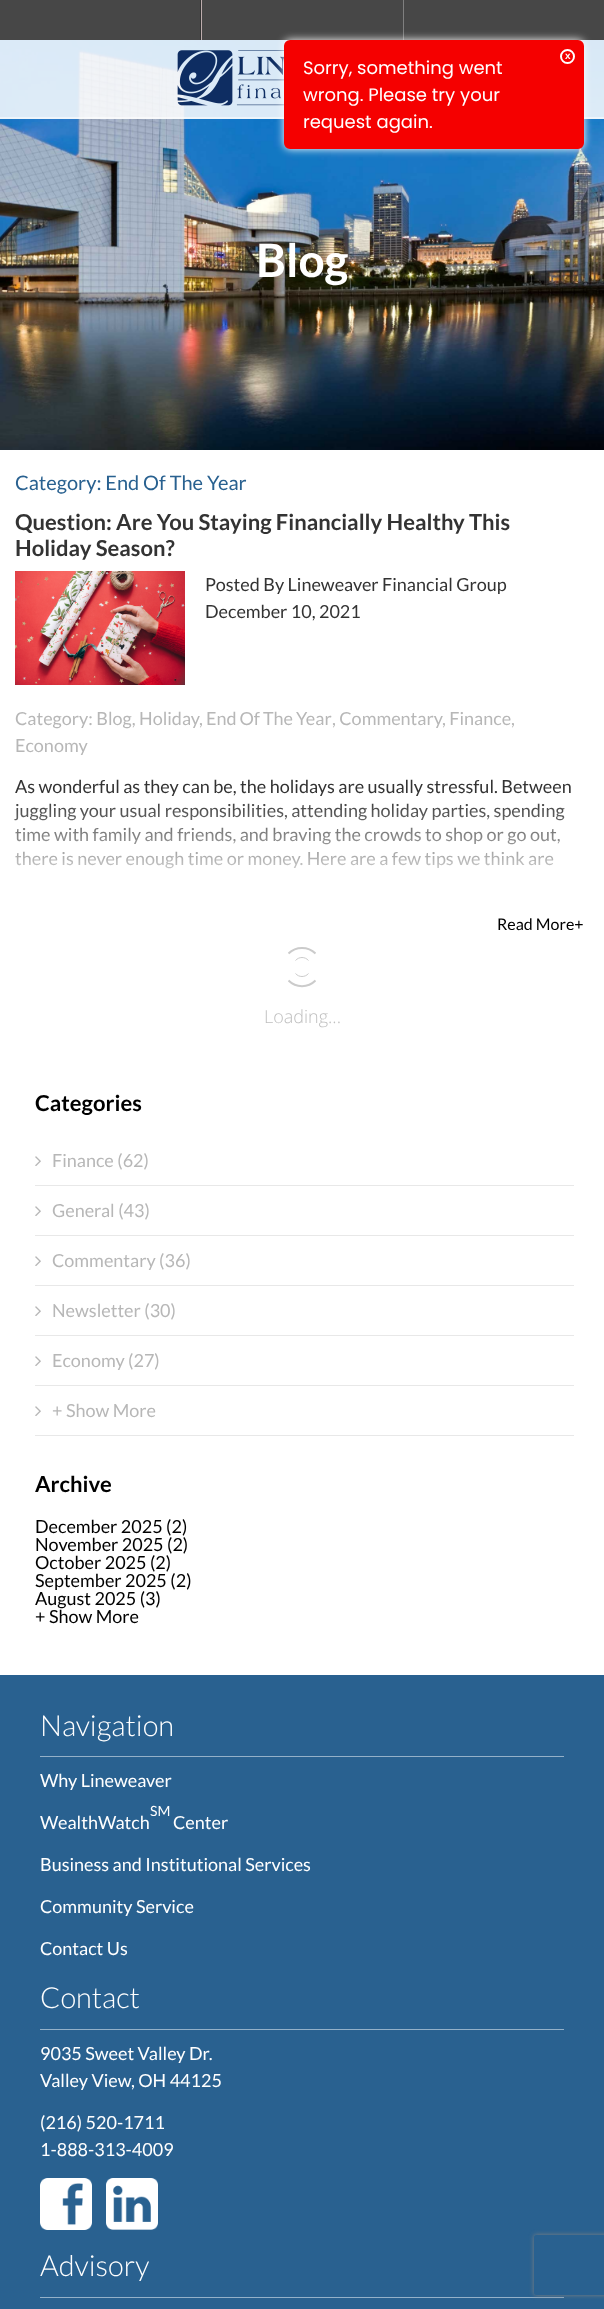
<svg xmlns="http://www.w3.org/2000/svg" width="604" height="2309">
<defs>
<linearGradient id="g1" gradientUnits="userSpaceOnUse" x1="302" y1="796" x2="302" y2="876"><stop offset="0" stop-color="#fff" stop-opacity="0"/><stop offset="0.01" stop-color="#fff" stop-opacity="0.01"/><stop offset="1" stop-color="#fff" stop-opacity="0.8"/></linearGradient>
<clipPath id="clip1"><path d="M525 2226h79v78h-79zm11 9h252c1 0 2 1 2 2v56c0 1-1 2-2 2h-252c-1 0-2-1-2-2v-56c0-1 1-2 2-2z" clip-rule="evenodd"/></clipPath>
</defs>
<rect width="100%" height="100%" fill="#fff"/>
<rect width="604" height="40" fill="#474747"/>
<rect x="200" width="1" height="40" fill="#333"/>
<rect x="201" width="1" height="40" fill="#bdadad"/>
<rect x="403" width="1" height="40" fill="#7f7f7f"/>
<image x="0" y="40" width="604" height="410" href="media/2.png"/>
<rect y="40" width="604" height="79" fill="#ffffffd9"/>
<rect y="117" width="604" height="2" fill="#ffffff80"/>
<image x="177" y="50" width="107" height="56" href="media/1.png"/>
<rect x="284" y="40" width="300" height="109" rx="6" fill="#fff" filter="blur(4px)"/>
<rect x="286" y="42" width="296" height="105" rx="4" fill="#f50000" stroke="#f50000" stroke-width="4"/>
<circle cx="567.5" cy="56.5" r="6.5" fill="none" stroke="#fff" stroke-width="2"/>
<text x="565" y="59" style="font-family:Liberation Sans;font-size:10px;font-weight:bold;fill:#fff">x</text>
<text x="303" y="74" style="font-family:Poppins;font-size:18px;fill:#fff">Sorry, something went</text>
<text x="303" y="101" style="font-family:Poppins;font-size:18px;fill:#fff">wrong. Please try your</text>
<text x="303" y="128" style="font-family:Poppins;font-size:18px;fill:#fff">request again.</text>
<text x="256" y="277" style="font-family:Lato;font-size:46px;font-weight:bold;fill:#fff">Blog</text>
<text x="15" y="490" style="font-family:Lato;font-size:20px;fill:#296190">Category: End Of The Year</text>
<text x="15" y="530" style="font-family:Lato;font-size:22px;font-weight:bold;fill:#333">Question: Are You Staying Financially Healthy This</text>
<text x="15" y="556" style="font-family:Lato;font-size:22px;font-weight:bold;fill:#333">Holiday Season?</text>
<image x="15" y="571" width="170" height="114" href="media/3.png"/>
<text x="205" y="591" style="font-family:Lato;font-size:18px;fill:#333">Posted By Lineweaver Financial Group</text>
<text x="205" y="618" style="font-family:Lato;font-size:18px;fill:#333">December 10, 2021</text>
<text x="15" y="725" style="font-family:Lato;font-size:18px;fill:#b7b7b7">Category: Blog, Holiday</text>
<text x="199" y="725" style="font-family:Lato;font-size:18px;fill:#b7b7b7">,</text>
<text x="206" y="725" word-spacing="-0.5" style="font-family:Lato;font-size:18px;fill:#b7b7b7">End Of The Year</text>
<text x="332" y="725" style="font-family:Lato;font-size:18px;fill:#b7b7b7">, Commentary</text>
<text x="442" y="725" style="font-family:Lato;font-size:18px;fill:#b7b7b7">, Finance,</text>
<text x="15" y="752" style="font-family:Lato;font-size:18px;fill:#b7b7b7">Economy</text>
<text x="15" y="793" style="font-family:Lato;font-size:18px;fill:#333">As wonderful as they can be, the holidays are usually stressful. Between</text>
<text x="15" y="817" style="font-family:Lato;font-size:18px;fill:#333">juggling your usual responsibilities, attending holiday parties, spending</text>
<text x="15" y="841" style="font-family:Lato;font-size:18px;fill:#333">time with family and friends, and braving the crowds to shop or go out,</text>
<text x="15" y="865" style="font-family:Lato;font-size:18px;fill:#333">there is never enough time or money. Here are a few tips we think are</text>
<rect x="15" y="803" width="550" height="66" fill="url(#g1)"/>
<text x="497" y="930" style="font-family:Lato;font-size:16px;fill:#000">Read More+</text>
<path d="M288.5 953.5c7.5-7.5 19.5-7.5 27 0m0 27c-7.5 7.5-19.5 7.5-27 0" fill="none" stroke="#cbcbcb" stroke-width="2"/>
<path d="M295.5 960.5c3.5-4 9.5-4 13 0m0 13c-3.5 4-9.5 4-13 0" fill="none" stroke="#cbcbcb"/>
<text x="264" y="1023" style="font-family:Open Sans;font-size:18px;font-weight:300;fill:#bfbfbf">Loading...</text>
<text x="35" y="1111" style="font-family:Lato;font-size:22px;font-weight:bold;fill:#000">Categories</text>
<rect x="35" y="1185" width="539" height="1" fill="#e8e8e8"/>
<image x="35" y="1156" width="6" height="10" href="media/4.png"/>
<text x="52" y="1167" style="font-family:Lato;font-size:18px;fill:#b7b7b7">Finance (62)</text>
<rect x="35" y="1235" width="539" height="1" fill="#e8e8e8"/>
<image x="35" y="1206" width="6" height="10" href="media/4.png"/>
<text x="52" y="1217" style="font-family:Lato;font-size:18px;fill:#b7b7b7">General (43)</text>
<rect x="35" y="1285" width="539" height="1" fill="#e8e8e8"/>
<image x="35" y="1256" width="6" height="10" href="media/4.png"/>
<text x="52" y="1267" style="font-family:Lato;font-size:18px;fill:#b7b7b7">Commentary (36)</text>
<rect x="35" y="1335" width="539" height="1" fill="#e8e8e8"/>
<image x="35" y="1306" width="6" height="10" href="media/4.png"/>
<text x="52" y="1317" style="font-family:Lato;font-size:18px;fill:#b7b7b7">Newsletter (30)</text>
<rect x="35" y="1385" width="539" height="1" fill="#e8e8e8"/>
<image x="35" y="1356" width="6" height="10" href="media/4.png"/>
<text x="52" y="1367" style="font-family:Lato;font-size:18px;fill:#b7b7b7">Economy (27)</text>
<rect x="35" y="1435" width="539" height="1" fill="#e8e8e8"/>
<image x="35" y="1406" width="6" height="10" href="media/4.png"/>
<text x="52" y="1417" style="font-family:Lato;font-size:18px;fill:#b7b7b7">+ Show More</text>
<text x="35" y="1492" style="font-family:Lato;font-size:22px;font-weight:bold;fill:#000">Archive</text>
<text x="35" y="1533" style="font-family:Lato;font-size:18px;fill:#000">December 2025 (2)</text>
<text x="35" y="1551" style="font-family:Lato;font-size:18px;fill:#000">November 2025 (2)</text>
<text x="35" y="1569" style="font-family:Lato;font-size:18px;fill:#000">October 2025 (2)</text>
<text x="35" y="1587" style="font-family:Lato;font-size:18px;fill:#000">September 2025 (2)</text>
<text x="35" y="1605" style="font-family:Lato;font-size:18px;fill:#000">August 2025 (3)</text>
<text x="35" y="1623" style="font-family:Lato;font-size:18px;fill:#000">+ Show More</text>
<rect y="1675" width="604" height="634" fill="#296190"/>
<rect x="40" y="1756" width="524" height="1" fill="#94b0c8"/>
<text x="40" y="1736" style="font-family:Lato;font-size:29px;font-weight:300;fill:#fff">Navigation</text>
<text x="40" y="1787" style="font-family:Lato;font-size:18px;fill:#fff">Why Lineweaver</text>
<text x="150" y="1816" style="font-family:Lato;font-size:14px;fill:#fff">SM</text>
<text x="40" y="1829" style="font-family:Lato;font-size:18px;fill:#fff">WealthWatch</text>
<text x="173" y="1829" style="font-family:Lato;font-size:18px;fill:#fff">Center</text>
<text x="40" y="1871" style="font-family:Lato;font-size:18px;fill:#fff">Business and Institutional Services</text>
<text x="40" y="1913" style="font-family:Lato;font-size:18px;fill:#fff">Community Service</text>
<text x="40" y="1955" style="font-family:Lato;font-size:18px;fill:#fff">Contact Us</text>
<rect x="40" y="2029" width="524" height="1" fill="#94b0c8"/>
<text x="40" y="2008" style="font-family:Lato;font-size:29px;font-weight:300;fill:#fff">Contact</text>
<text x="40" y="2060" style="font-family:Lato;font-size:18px;fill:#fff">9035 Sweet Valley Dr.</text>
<text x="40" y="2087" style="font-family:Lato;font-size:18px;fill:#fff">Valley View, OH 44125</text>
<text x="40" y="2129" style="font-family:Lato;font-size:18px;fill:#fff">(216) 520-1711</text>
<text x="40" y="2156" style="font-family:Lato;font-size:18px;fill:#fff">1-888-313-4009</text>
<image x="40" y="2178" width="52" height="52" href="media/5.png"/>
<image x="106" y="2178" width="52" height="52" href="media/6.png"/>
<rect x="40" y="2297" width="524" height="1" fill="#94b0c8"/>
<text x="40" y="2276" style="font-family:Lato;font-size:29px;font-weight:300;fill:#fff">Advisory</text>
<g clip-path="url(#clip1)">
<rect x="534" y="2235" width="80" height="60" rx="2" fill="#808080" filter="blur(2.5px)"/>
</g>
</svg>
